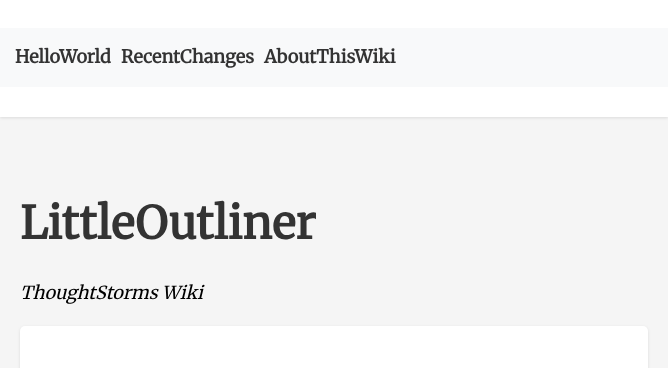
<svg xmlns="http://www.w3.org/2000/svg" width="668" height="368">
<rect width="100%" height="100%" fill="#f5f5f5"/>
<rect y="1" width="668" height="117" fill="#0000001a" filter="blur(1.5px)"/>
<rect width="668" height="117" fill="#fff"/>
<rect y="28" width="668" height="59" fill="#f8f9fa"/>
<text x="15" y="63" style="font-family:Merriweather;font-size:18px;font-weight:bold;fill:#333">HelloWorld</text>
<text x="121" y="63" style="font-family:Merriweather;font-size:18px;font-weight:bold;fill:#333">RecentChanges</text>
<text x="264" y="63" style="font-family:Merriweather;font-size:18px;font-weight:bold;fill:#333">AboutThisWiki</text>
<text x="20" y="239" style="font-family:Merriweather;font-size:45px;font-weight:bold;fill:#333">LittleOutliner</text>
<text x="20" y="299" style="font-family:Merriweather;font-size:18px;font-weight:300;font-style:italic;fill:#000">ThoughtStorms Wiki</text>
<rect x="20" y="327" width="628" height="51" rx="5" fill="#0000001a" filter="blur(1.5px)"/>
<rect x="20" y="326" width="628" height="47" rx="5" fill="#fff"/>
</svg>
